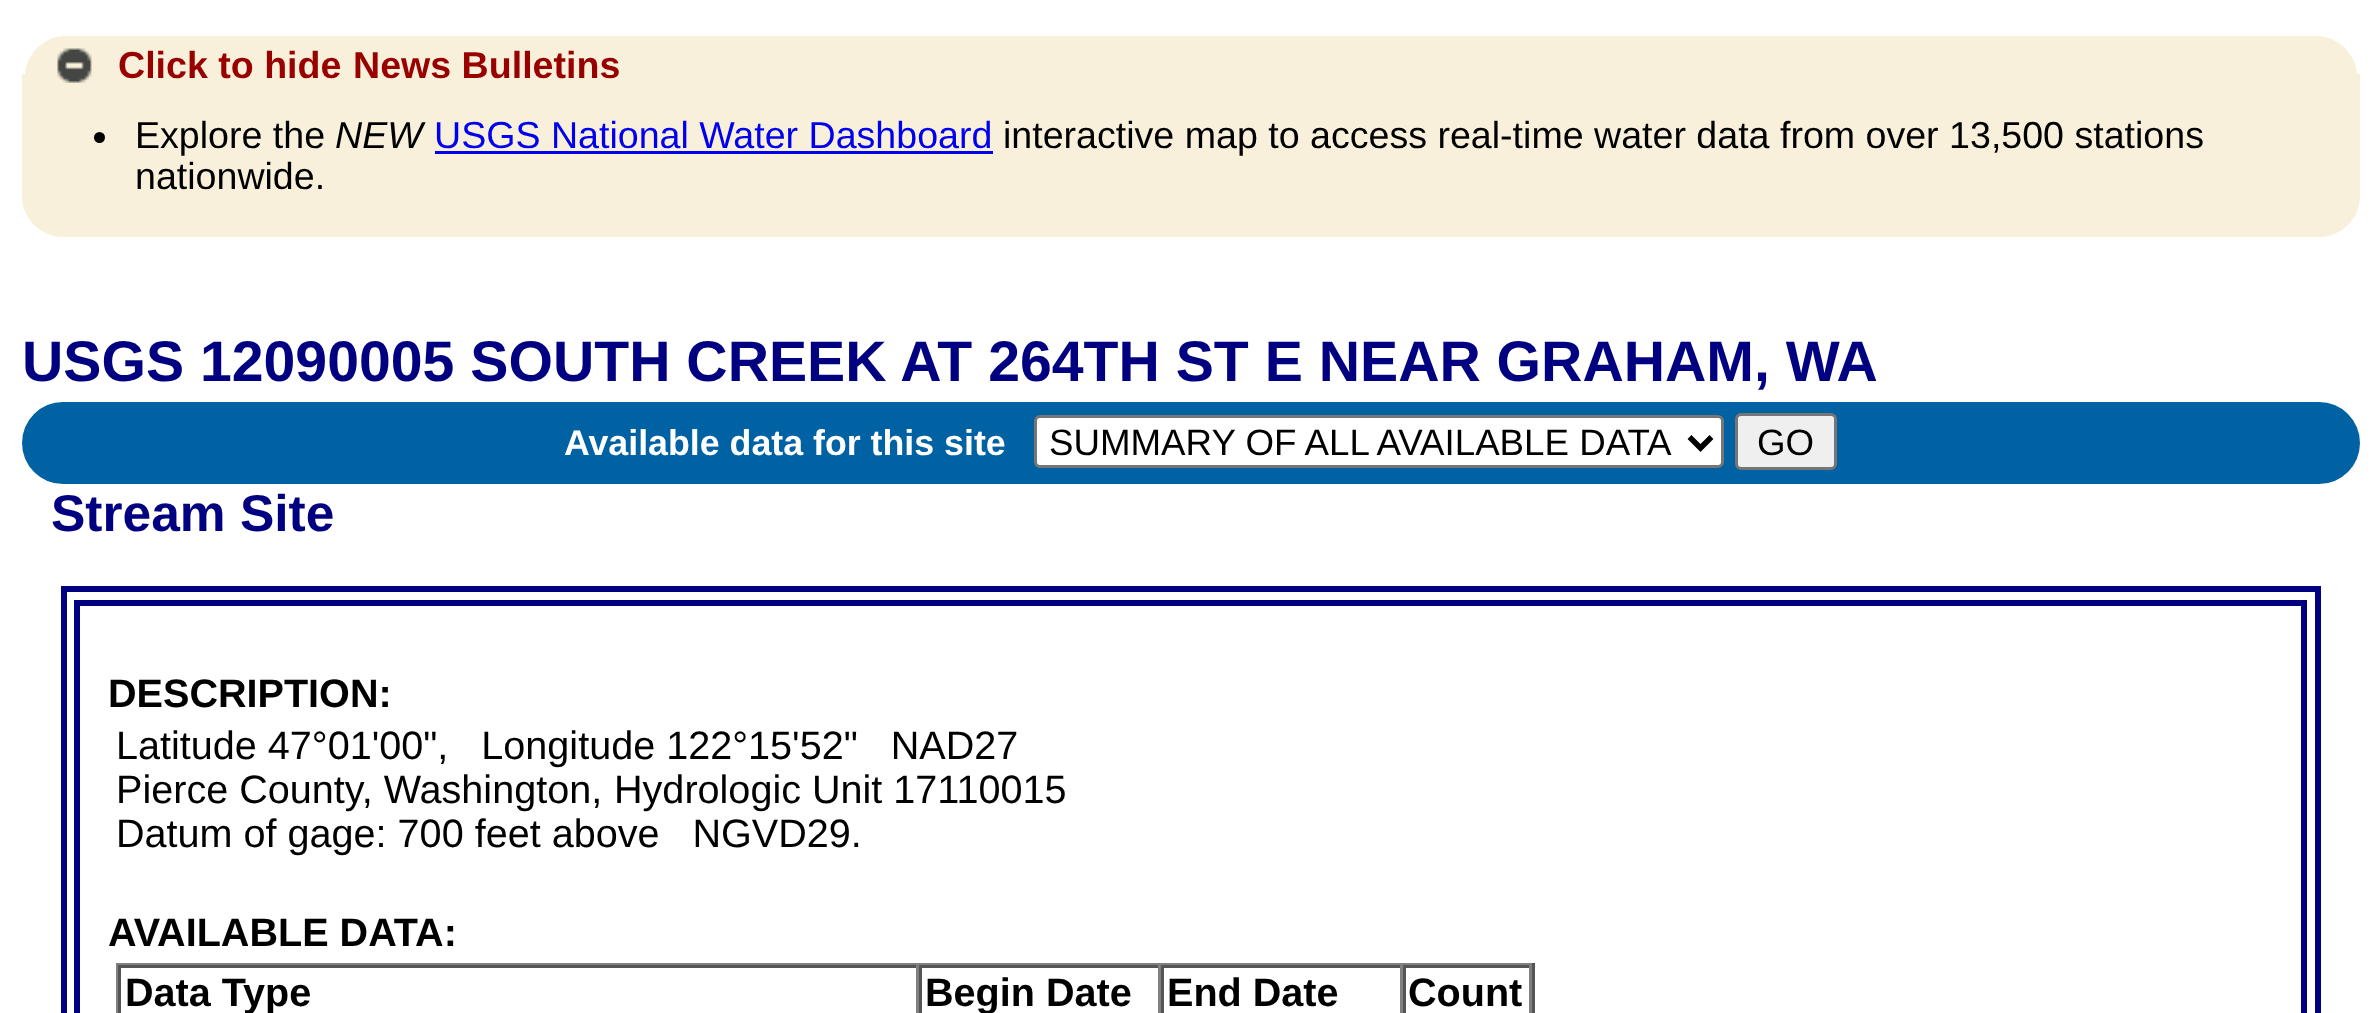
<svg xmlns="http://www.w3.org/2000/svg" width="2379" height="1013">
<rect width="100%" height="100%" fill="#fff"/>
<path d="M22 74h2338v122c0 22.5-18.5 41-41 41h-2256c-22.5 0-41-18.5-41-41z" fill="#f8f0db"/>
<path d="M66 36h2250c22.5 0 41 18.5 41 41v17h-2332v-17c0-22.5 18.5-41 41-41z" fill="#f8f0db"/>
<image x="57" y="48" width="35" height="35" href="media/1.png"/>
<text x="118" y="78" style="font-family:Liberation Sans;font-size:37.6px;font-weight:bold;fill:#900">Click to hide</text>
<text x="353" y="78" style="font-family:Liberation Sans;font-size:37.6px;font-weight:bold;fill:#900">News Bulletins</text>
<circle cx="99.5" cy="137.5" r="5.5" fill="#000"/>
<text x="135" y="148" style="font-family:Liberation Sans;font-size:37.6px;fill:#000">Explore the</text>
<text x="335" y="148" style="font-family:Liberation Sans;font-size:37.6px;font-style:italic;fill:#000">NEW</text>
<text x="434" y="148" style="font-family:Liberation Sans;font-size:37.6px;fill:#00e">USGS National Water Dashboard</text>
<rect x="435" y="151" width="558" height="3" fill="#00e"/>
<text x="1003" y="148" style="font-family:Liberation Sans;font-size:37.6px;fill:#000">interactive map to access real-time water data from over 13,500 stations</text>
<text x="135" y="189" style="font-family:Liberation Sans;font-size:37.6px;fill:#000">nationwide.</text>
<text x="22" y="381" style="font-family:Liberation Sans;font-size:57.2px;font-weight:bold;fill:#000080">USGS 12090005 SOUTH CREEK AT 264TH ST E NEAR GRAHAM, WA</text>
<rect x="22" y="402" width="2338" height="82" rx="41" fill="#0061a3"/>
<text x="564" y="455" style="font-family:Liberation Sans;font-size:35.75px;font-weight:bold;fill:#fff">Available data for this site</text>
<rect x="1035.5" y="416.5" width="687" height="50" rx="4.5" fill="#fff" stroke="#767676" stroke-width="3"/>
<path d="M1689.5 437l11 11l11-11" fill="none" stroke="#000" stroke-width="5.5"/>
<text x="1049" y="455" style="font-family:Liberation Sans;font-size:36.7px;fill:#000">SUMMARY OF ALL AVAILABLE DATA</text>
<rect x="1736.5" y="414.5" width="99" height="54" rx="4.5" fill="#efefef" stroke="#767676" stroke-width="3"/>
<text x="1757" y="455" style="font-family:Liberation Sans;font-size:36.7px;fill:#000">GO</text>
<text x="51" y="531" style="font-family:Liberation Sans;font-size:51.5px;font-weight:bold;fill:#000080">Stream Site</text>
<rect x="64" y="589" width="2254" height="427" fill="none" stroke="#000080" stroke-width="6"/>
<rect x="77" y="603" width="2227" height="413" fill="none" stroke="#000080" stroke-width="6"/>
<text x="108" y="707" style="font-family:Liberation Sans;font-size:39.6px;font-weight:bold;fill:#000">DESCRIPTION:</text>
<text x="116" y="759" style="font-family:Liberation Sans;font-size:39.6px;fill:#000" xml:space="preserve">Latitude 47°01'00",   Longitude 122°15'52"   NAD27</text>
<text x="116" y="803" style="font-family:Liberation Sans;font-size:39.6px;fill:#000">Pierce County, Washington,</text>
<text x="614" y="803" style="font-family:Liberation Sans;font-size:39.6px;fill:#000">Hydrologic Unit 17110015</text>
<text x="116" y="847" style="font-family:Liberation Sans;font-size:39.6px;fill:#000" xml:space="preserve">Datum of gage: 700 feet above   NGVD29.</text>
<text x="108" y="946" style="font-family:Liberation Sans;font-size:39.6px;font-weight:bold;fill:#000">AVAILABLE DATA:</text>
<rect x="116" y="963" width="1419" height="2" fill="#808080"/>
<rect x="1532" y="963" width="3" height="50" fill="#555"/>
<rect x="116" y="963" width="3" height="50" fill="#808080"/>
<rect x="118" y="965" width="1414" height="3" fill="#555"/>
<rect x="916" y="965" width="3" height="48" fill="#808080"/>
<rect x="118" y="965" width="3" height="48" fill="#555"/>
<text x="125" y="1006" style="font-family:Liberation Sans;font-size:39.6px;font-weight:bold;fill:#000">Data Type</text>
<rect x="1158" y="965" width="3" height="48" fill="#808080"/>
<rect x="919" y="965" width="3" height="48" fill="#555"/>
<text x="925" y="1006" style="font-family:Liberation Sans;font-size:39.6px;font-weight:bold;fill:#000">Begin Date</text>
<rect x="1400" y="965" width="3" height="48" fill="#808080"/>
<rect x="1161" y="965" width="3" height="48" fill="#555"/>
<text x="1167" y="1006" style="font-family:Liberation Sans;font-size:39.6px;font-weight:bold;fill:#000">End Date</text>
<rect x="1529" y="965" width="3" height="48" fill="#808080"/>
<rect x="1403" y="965" width="3" height="48" fill="#555"/>
<text x="1408" y="1006" style="font-family:Liberation Sans;font-size:39.6px;font-weight:bold;fill:#000">Count</text>
</svg>
